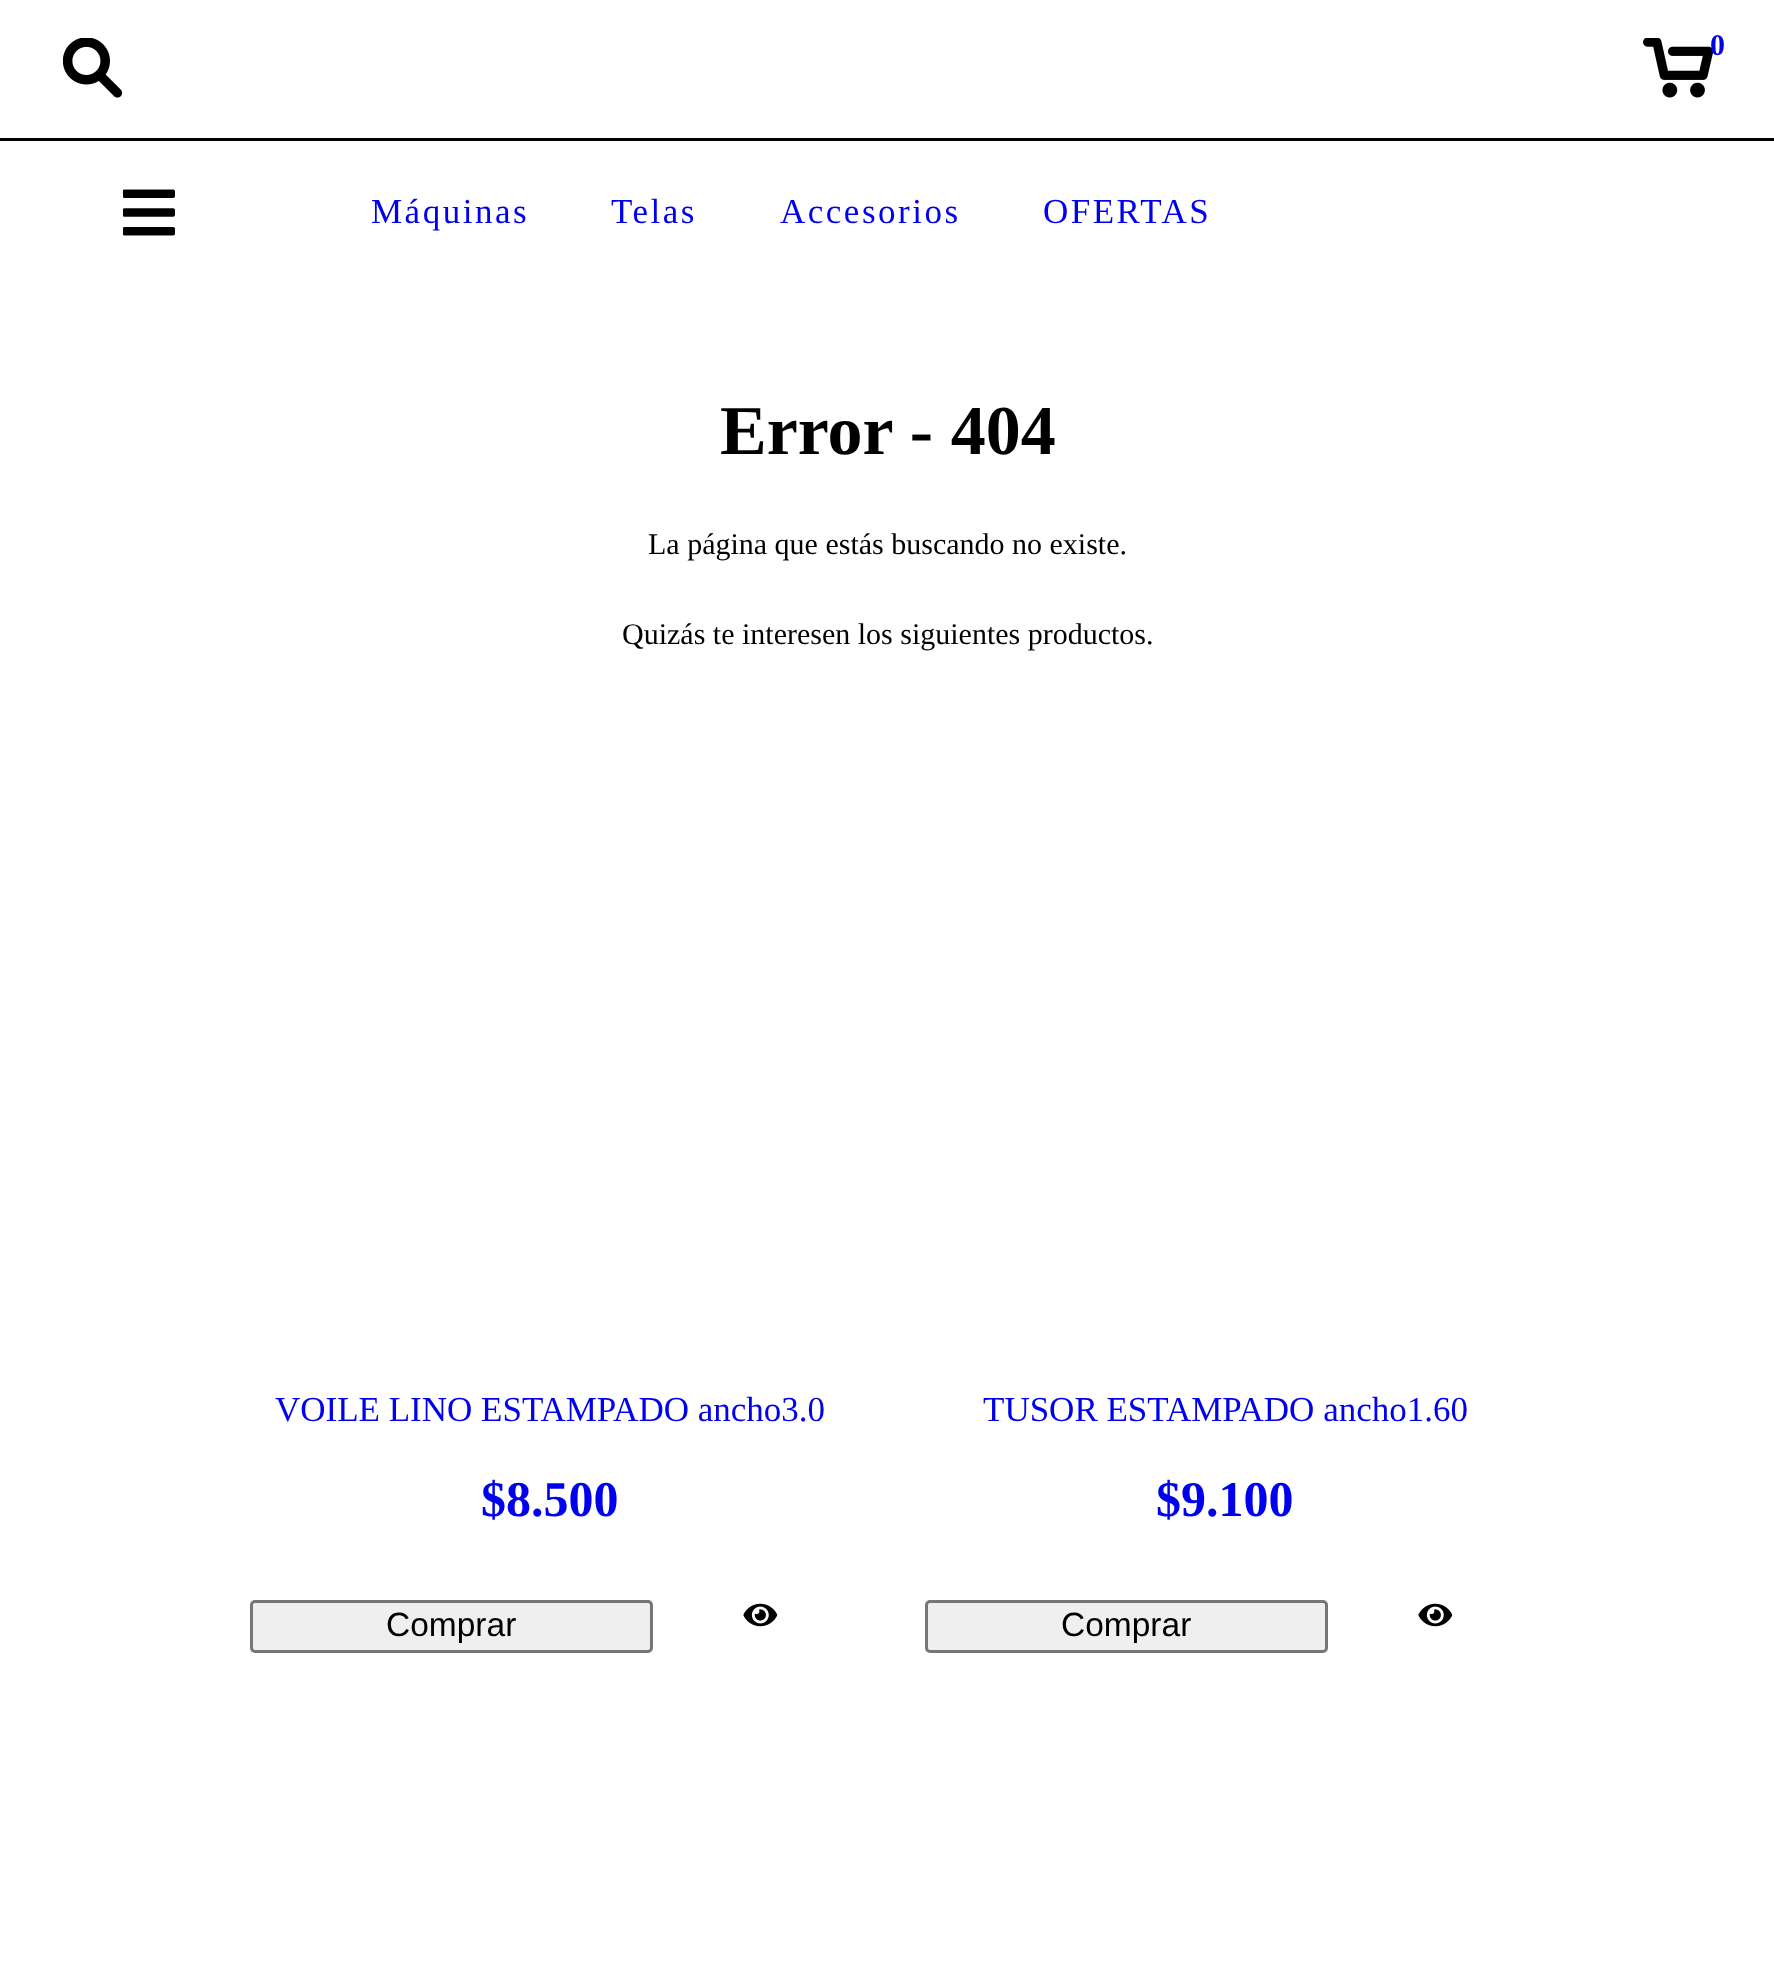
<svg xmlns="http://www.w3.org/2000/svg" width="1774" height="1969">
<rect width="100%" height="100%" fill="#fff"/>
<image x="63" y="38" width="60" height="60" href="media/1.png"/>
<image x="1643" y="38" width="71" height="60" href="media/2.png"/>
<text x="1710" y="55" style="font-family:Liberation Serif;font-size:30px;font-weight:bold;fill:#00e">0</text>
<rect y="138" width="1774" height="3" fill="#000"/>
<image x="123" y="189" width="52" height="47" href="media/3.png"/>
<text x="371" y="223" style="font-family:Liberation Serif;font-size:35px;letter-spacing:2.5px;fill:#00e">Máquinas</text>
<text x="611" y="223" style="font-family:Liberation Serif;font-size:35px;letter-spacing:2.5px;fill:#00e">Telas</text>
<text x="780" y="223" style="font-family:Liberation Serif;font-size:35px;letter-spacing:2.5px;fill:#00e">Accesorios</text>
<text x="1043" y="223" style="font-family:Liberation Serif;font-size:35px;letter-spacing:2.5px;fill:#00e">OFERTAS</text>
<text x="720" y="454" style="font-family:Liberation Serif;font-size:70px;font-weight:bold;fill:#000">Error - 404</text>
<text x="648" y="554" style="font-family:Liberation Serif;font-size:30px;fill:#000">La página que estás buscando no existe.</text>
<text x="622" y="644" style="font-family:Liberation Serif;font-size:30px;fill:#000">Quizás te interesen los siguientes productos.</text>
<text x="275" y="1421" style="font-family:Liberation Serif;font-size:35px;fill:#00e">VOILE LINO ESTAMPADO ancho3.0</text>
<text x="481" y="1516" style="font-family:Liberation Serif;font-size:50px;font-weight:bold;fill:#00e">$8.500</text>
<rect x="251.5" y="1601.5" width="400" height="50" rx="3.5" fill="#efefef" stroke="#767676" stroke-width="3"/>
<text x="386" y="1636" style="font-family:Liberation Sans;font-size:33.5px;fill:#000">Comprar</text>
<image x="743" y="1603" width="35" height="24" href="media/4.png"/>
<text x="983" y="1421" style="font-family:Liberation Serif;font-size:35px;fill:#00e">TUSOR ESTAMPADO ancho1.60</text>
<text x="1156" y="1516" style="font-family:Liberation Serif;font-size:50px;font-weight:bold;fill:#00e">$9.100</text>
<rect x="926.5" y="1601.5" width="400" height="50" rx="3.5" fill="#efefef" stroke="#767676" stroke-width="3"/>
<text x="1061" y="1636" style="font-family:Liberation Sans;font-size:33.5px;fill:#000">Comprar</text>
<image x="1418" y="1603" width="35" height="24" href="media/4.png"/>
</svg>
